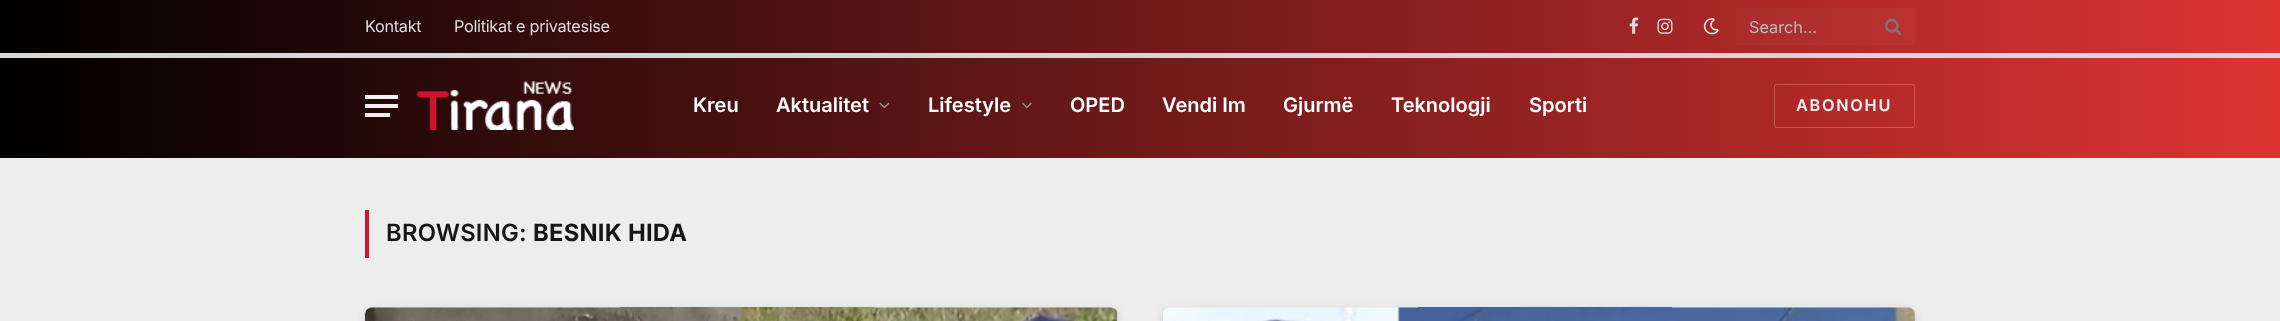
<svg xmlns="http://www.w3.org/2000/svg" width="2280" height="321">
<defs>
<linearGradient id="g1" gradientUnits="userSpaceOnUse" x1="0" y1="26" x2="2280" y2="26"><stop offset="0" stop-color="#000"/><stop offset="1" stop-color="#d33"/></linearGradient>
<linearGradient id="g2" gradientUnits="userSpaceOnUse" x1="2280" y1="105" x2="0" y2="105"><stop offset="0" stop-color="#d33"/><stop offset="1" stop-color="#000"/></linearGradient>
</defs>
<rect width="100%" height="100%" fill="#ededed"/>
<rect width="2280" height="53" fill="url(#g1)"/>
<text x="365" y="32" style="font-family:Inter;font-size:16.25px;letter-spacing:-0.3px;fill:#ddd">Kontakt</text>
<text x="454" y="32" style="font-family:Inter;font-size:16.25px;letter-spacing:-0.3px;fill:#ddd">Politikat e privatesise</text>
<image x="1629" y="17" width="10" height="17" href="media/1.png"/>
<image x="1657" y="18" width="16" height="16" href="media/2.png"/>
<image x="1703" y="18" width="16" height="17" href="media/3.png"/>
<rect x="1736" y="8" width="179" height="37" fill="#ffffff08"/>
<text x="1749" y="33" style="font-family:Inter;font-size:16.25px;fill:#bbb">Search...</text>
<image x="1885" y="18" width="17" height="17" href="media/4.png"/>
<rect y="58" width="2280" height="100" fill="url(#g2)"/>
<rect y="53" width="2280" height="5" fill="#d6d6d6"/>
<rect x="365" y="113" width="25" height="4" fill="#f0f0f0"/>
<rect x="365" y="95" width="33" height="4" fill="#f0f0f0"/>
<rect x="365" y="104" width="33" height="4" fill="#f0f0f0"/>
<image x="416" y="81" width="158" height="49" href="media/5.png"/>
<text x="693" y="112" style="font-family:Inter;font-size:20px;font-weight:600;fill:#fff">Kreu</text>
<text x="776" y="112" style="font-family:Inter;font-size:20px;font-weight:600;fill:#fff">Aktualitet</text>
<image x="879" y="102" width="11" height="7" href="media/6.png"/>
<text x="928" y="112" style="font-family:Inter;font-size:20px;font-weight:600;fill:#fff">Lifestyle</text>
<image x="1022" y="102" width="10" height="7" href="media/7.png"/>
<text x="1070" y="112" style="font-family:Inter;font-size:20px;font-weight:600;fill:#fff">OPED</text>
<text x="1162" y="112" style="font-family:Inter;font-size:20px;font-weight:600;fill:#fff">Vendi Im</text>
<text x="1283" y="112" style="font-family:Inter;font-size:20px;font-weight:600;fill:#fff">Gjurmë</text>
<text x="1391" y="112" style="font-family:Inter;font-size:20px;font-weight:600;fill:#fff">Teknologji</text>
<text x="1529" y="112" style="font-family:Inter;font-size:20px;font-weight:600;fill:#fff">Sporti</text>
<rect x="1774.5" y="84.5" width="140" height="43" rx="2" fill="none" stroke="#ffffff33"/>
<text x="1796" y="111" style="font-family:Inter;font-size:16.25px;font-weight:600;letter-spacing:1.75px;fill:#f0f0f0">ABONOHU</text>
<rect x="365" y="210" width="4" height="48" fill="#d1142e"/>
<text x="386" y="241" style="font-family:Inter;font-size:23.75px;font-weight:600;letter-spacing:0.25px;fill:#161616">BROWSING:</text>
<text x="533" y="241" style="font-family:Inter;font-size:23.75px;font-weight:bold;letter-spacing:0.25px;fill:#161616">BESNIK HIDA</text>
<rect x="366" y="311" width="750" height="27" rx="5" fill="#070a1933" filter="blur(4px)"/>
<image x="365" y="307" width="753" height="14" href="media/8.png"/>
<rect x="1164" y="311" width="750" height="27" rx="5" fill="#070a1933" filter="blur(4px)"/>
<image x="1163" y="307" width="752" height="14" href="media/9.png"/>
</svg>
